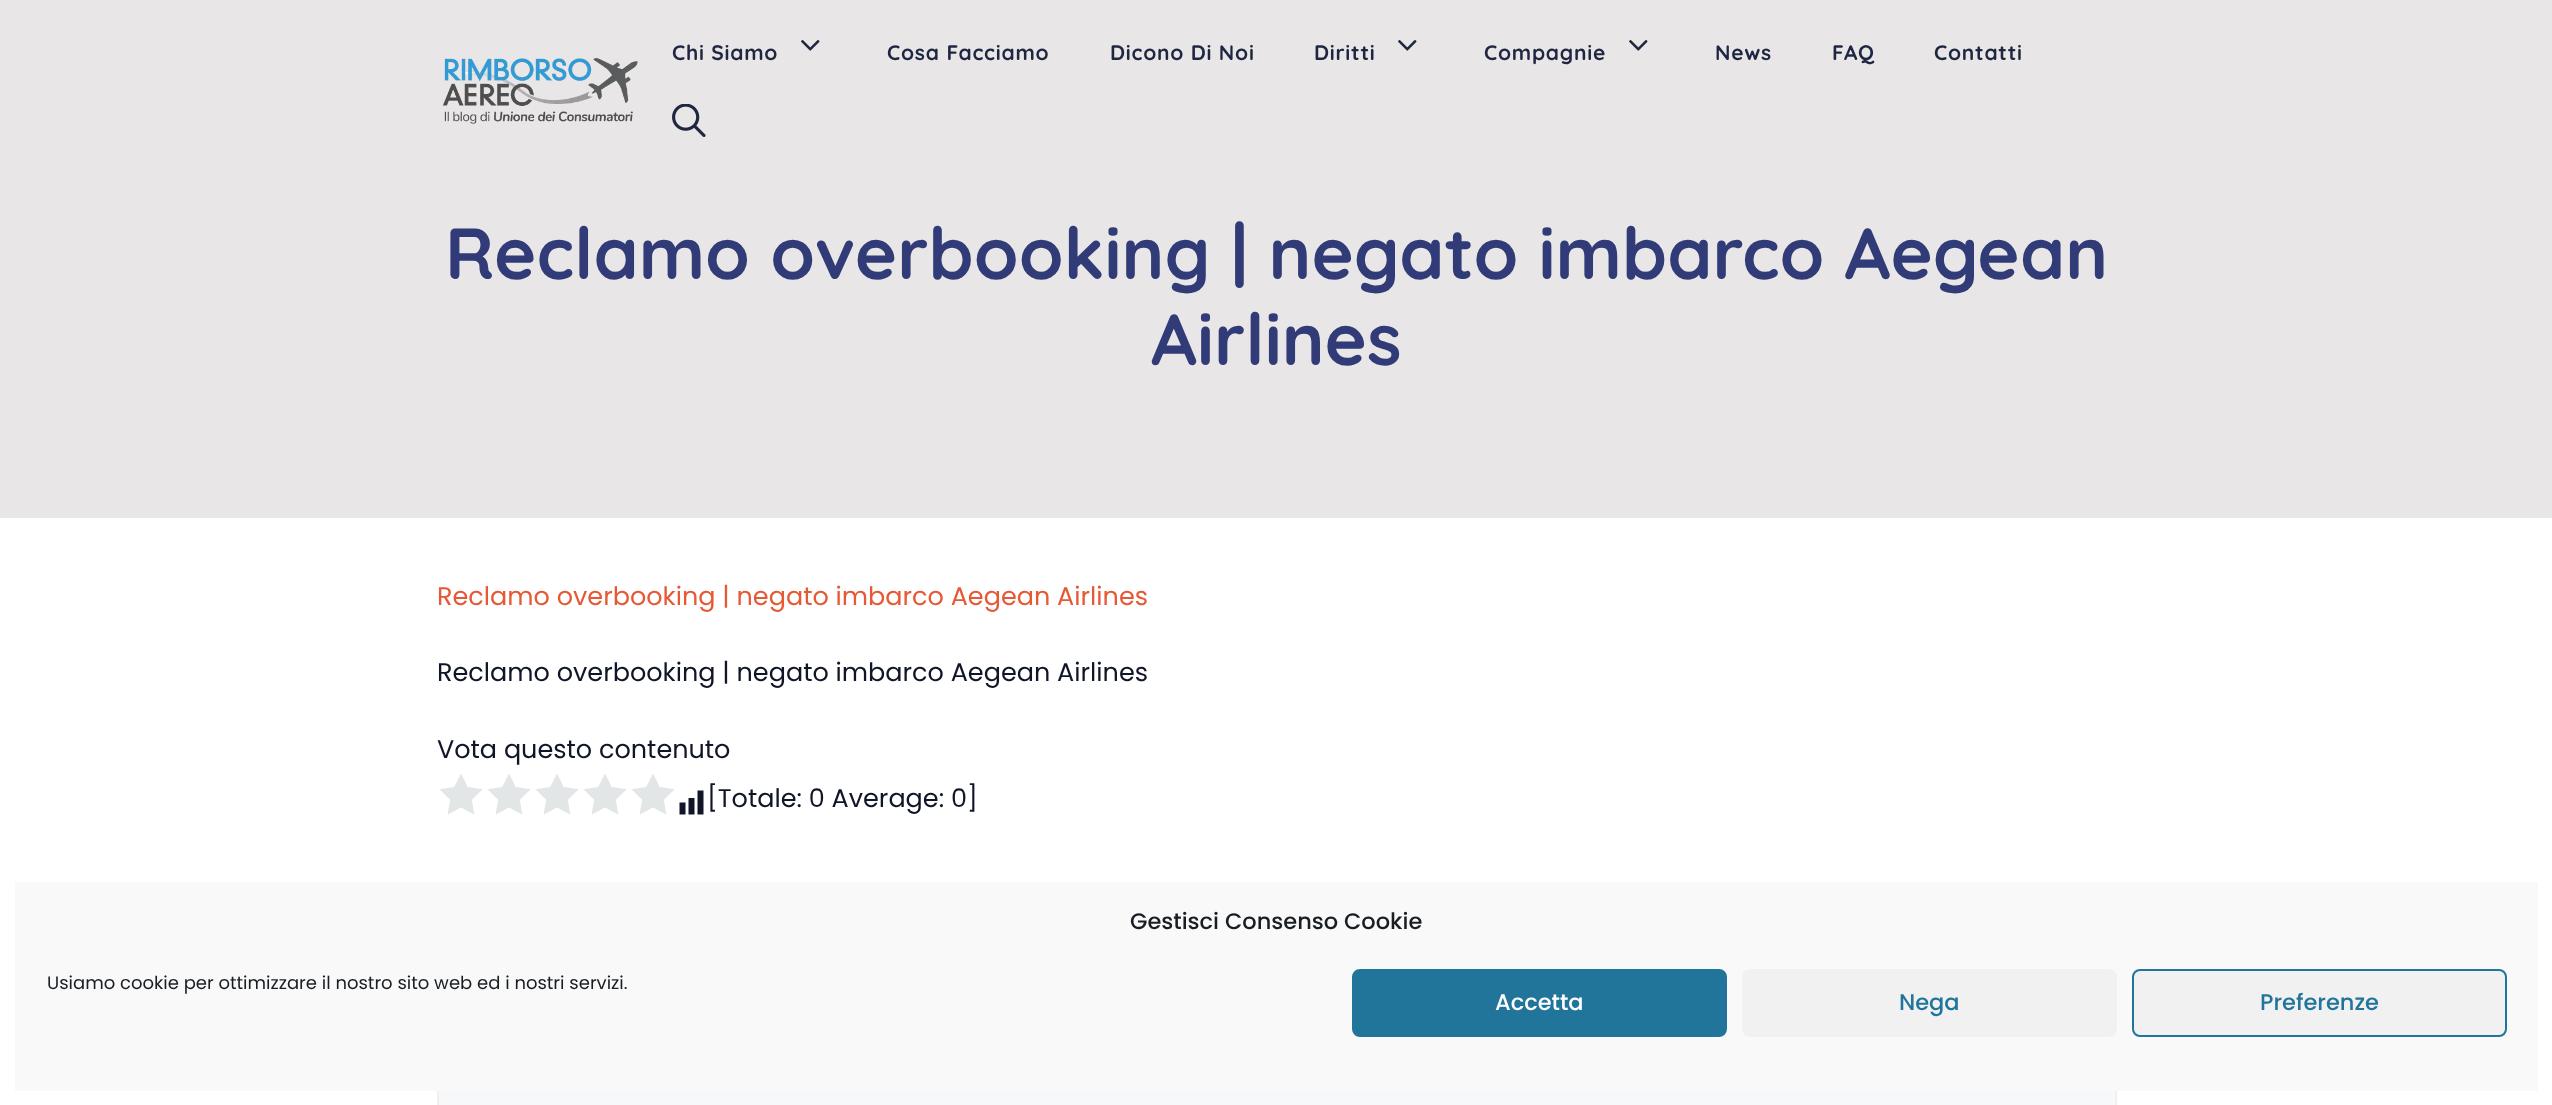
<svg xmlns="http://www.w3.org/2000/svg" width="2552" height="1105">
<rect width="100%" height="100%" fill="#fff"/>
<rect width="2552" height="518" fill="#e8e6e6"/>
<text x="672" y="60" style="font-family:Quicksand;font-size:21px;font-weight:bold;letter-spacing:0.75px;fill:#1f2641">Chi Siamo</text>
<image x="801" y="39" width="19" height="12" href="media/1.png"/>
<text x="887" y="60" style="font-family:Quicksand;font-size:21px;font-weight:bold;letter-spacing:0.75px;fill:#1f2641">Cosa Facciamo</text>
<text x="1110" y="60" style="font-family:Quicksand;font-size:21px;font-weight:bold;letter-spacing:0.75px;fill:#1f2641">Dicono Di Noi</text>
<text x="1314" y="60" style="font-family:Quicksand;font-size:21px;font-weight:bold;letter-spacing:0.75px;fill:#1f2641">Diritti</text>
<image x="1398" y="39" width="19" height="12" href="media/1.png"/>
<text x="1484" y="60" style="font-family:Quicksand;font-size:21px;font-weight:bold;letter-spacing:0.75px;fill:#1f2641">Compagnie</text>
<image x="1629" y="39" width="19" height="12" href="media/1.png"/>
<text x="1715" y="60" style="font-family:Quicksand;font-size:21px;font-weight:bold;letter-spacing:0.75px;fill:#1f2641">News</text>
<text x="1832" y="60" style="font-family:Quicksand;font-size:21px;font-weight:bold;letter-spacing:0.75px;fill:#1f2641">FAQ</text>
<text x="1934" y="60" style="font-family:Quicksand;font-size:21px;font-weight:bold;letter-spacing:0.75px;fill:#1f2641">Contatti</text>
<image x="672" y="104" width="34" height="33" href="media/2.png"/>
<image x="443" y="58" width="195" height="66" href="media/3.png"/>
<text x="445" y="279" style="font-family:Quicksand;font-size:72px;font-weight:bold;fill:#313b77">Reclamo overbooking | negato imbarco Aegean</text>
<text x="1151" y="365" style="font-family:Quicksand;font-size:72px;font-weight:bold;fill:#313b77">Airlines</text>
<text x="437" y="605" style="font-family:Poppins;font-size:25.5px;fill:#e55934">Reclamo overbooking | negato imbarco Aegean Airlines</text>
<text x="437" y="681" style="font-family:Poppins;font-size:25.5px;fill:#101528">Reclamo overbooking | negato imbarco Aegean Airlines</text>
<text x="437" y="758" style="font-family:Poppins;font-size:25.5px;fill:#101528">Vota questo contenuto</text>
<image x="439" y="774" width="236" height="41" href="media/4.png"/>
<image x="679" y="790" width="25" height="25" href="media/5.png"/>
<text x="707" y="807" style="font-family:Poppins;font-size:25.5px;fill:#101528">[Totale: 0 Average: 0]</text>
<rect x="439" y="1091" width="1676" height="14" fill="#f7f8f9"/>
<rect x="438" y="943" width="1678" height="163" fill="none" stroke="#f0f0f0" stroke-width="2"/>
<rect x="15" y="882" width="2523" height="209" fill="#f9f9f9"/>
<text x="1130" y="929" style="font-family:Poppins;font-size:22.5px;font-weight:500;fill:#191e23">Gestisci Consenso Cookie</text>
<text x="47" y="989" style="font-family:Poppins;font-size:18px;fill:#191e23">Usiamo cookie per ottimizzare il nostro sito web ed i nostri servizi.</text>
<rect x="1353" y="970" width="373" height="66" rx="7" fill="#21759b" stroke="#21759b" stroke-width="2"/>
<text x="1495" y="1010" style="font-family:Poppins;font-size:22.5px;font-weight:500;fill:#fff">Accetta</text>
<rect x="1742" y="969" width="375" height="68" rx="8" fill="#f1f1f1"/>
<text x="1899" y="1010" style="font-family:Poppins;font-size:22.5px;font-weight:500;fill:#21759b">Nega</text>
<rect x="2133" y="970" width="373" height="66" rx="7" fill="#f1f1f1" stroke="#21759b" stroke-width="2"/>
<text x="2260" y="1010" style="font-family:Poppins;font-size:22.5px;font-weight:500;fill:#21759b">Preferenze</text>
</svg>
